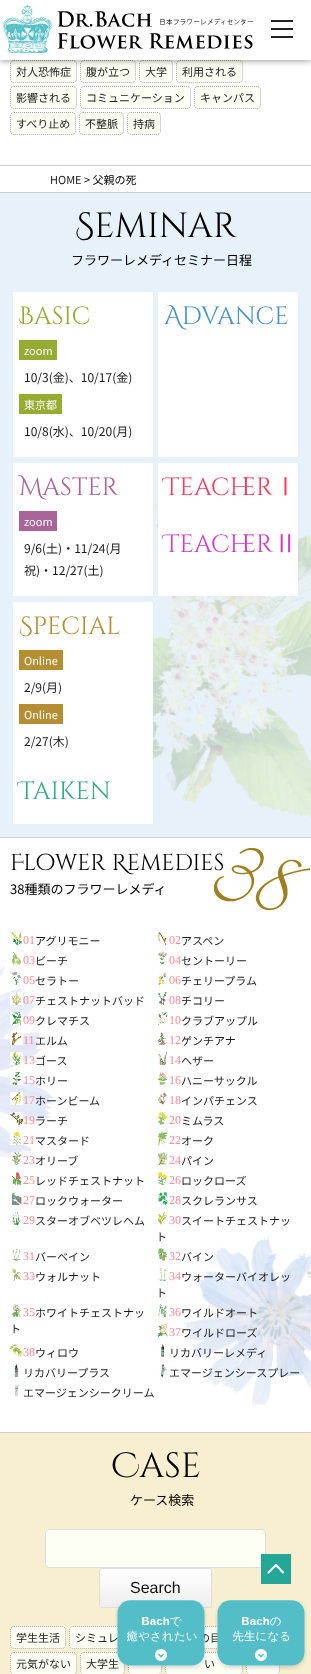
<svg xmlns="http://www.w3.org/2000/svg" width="311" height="1674">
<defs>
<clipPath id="clip1"><rect x="99" y="1568" width="113" height="40" rx="3"/></clipPath>
<linearGradient id="g1" gradientUnits="userSpaceOnUse" x1="100" y1="1569" x2="100" y2="1607"><stop offset="0" stop-color="#fff"/><stop offset="1" stop-color="#eee"/></linearGradient>
</defs>
<rect width="100%" height="100%" fill="#fff"/>
<rect x="10" y="60" width="67" height="23" rx="4" fill="#fefff4"/>
<path d="M14 60.5h59c2 0 3.5 1.5 3.5 3.5v15c0 2-1.5 3.5-3.5 3.5h-59c-2 0-3.5-1.5-3.5-3.5v-15c0-2 1.5-3.5 3.5-3.5z" fill="none" stroke="#aaa" stroke-dasharray="1 1"/>
<rect x="80" y="60" width="56" height="23" rx="4" fill="#fefff4"/>
<path d="M84 60.5h48c2 0 3.5 1.5 3.5 3.5v15c0 2-1.5 3.5-3.5 3.5h-48c-2 0-3.5-1.5-3.5-3.5v-15c0-2 1.5-3.5 3.5-3.5z" fill="none" stroke="#aaa" stroke-dasharray="1 1"/>
<rect x="139" y="60" width="34" height="23" rx="4" fill="#fefff4"/>
<path d="M143 60.5h26c2 0 3.5 1.5 3.5 3.5v15c0 2-1.5 3.5-3.5 3.5h-26c-2 0-3.5-1.5-3.5-3.5v-15c0-2 1.5-3.5 3.5-3.5z" fill="none" stroke="#aaa" stroke-dasharray="1 1"/>
<rect x="176" y="60" width="67" height="23" rx="4" fill="#fefff4"/>
<path d="M180 60.5h59c2 0 3.5 1.5 3.5 3.5v15c0 2-1.5 3.5-3.5 3.5h-59c-2 0-3.5-1.5-3.5-3.5v-15c0-2 1.5-3.5 3.5-3.5z" fill="none" stroke="#aaa" stroke-dasharray="1 1"/>
<rect width="311" height="60" fill="#00000080" filter="blur(3.5px)"/>
<rect width="311" height="60" fill="#fff"/>
<rect x="271" y="20" width="22" height="2" fill="#222"/>
<rect x="271" y="28" width="22" height="2" fill="#222"/>
<rect x="271" y="36" width="22" height="2" fill="#222"/>
<image x="3" y="5" width="250" height="48" href="media/1.png"/>
<rect y="165" width="311" height="1" fill="#d1d1d1"/>
<text x="16" y="76" style="font-family:Noto Sans JP;font-size:11px;fill:#222">対人恐怖症</text>
<text x="86" y="76" style="font-family:Noto Sans JP;font-size:11px;fill:#222">腹が立つ</text>
<text x="145" y="76" style="font-family:Noto Sans JP;font-size:11px;fill:#222">大学</text>
<text x="182" y="76" style="font-family:Noto Sans JP;font-size:11px;fill:#222">利用される</text>
<rect x="10" y="86" width="67" height="23" rx="4" fill="#fefff4"/>
<path d="M14 86.5h59c2 0 3.5 1.5 3.5 3.5v15c0 2-1.5 3.5-3.5 3.5h-59c-2 0-3.5-1.5-3.5-3.5v-15c0-2 1.5-3.5 3.5-3.5z" fill="none" stroke="#aaa" stroke-dasharray="1 1"/>
<text x="16" y="102" style="font-family:Noto Sans JP;font-size:11px;fill:#222">影響される</text>
<rect x="80" y="86" width="111" height="23" rx="4" fill="#fefff4"/>
<path d="M84 86.5h103c2 0 3.5 1.5 3.5 3.5v15c0 2-1.5 3.5-3.5 3.5h-103c-2 0-3.5-1.5-3.5-3.5v-15c0-2 1.5-3.5 3.5-3.5z" fill="none" stroke="#aaa" stroke-dasharray="1 1"/>
<text x="86" y="102" style="font-family:Noto Sans JP;font-size:11px;fill:#222">コミュニケーション</text>
<rect x="194" y="86" width="67" height="23" rx="4" fill="#fefff4"/>
<path d="M198 86.5h59c2 0 3.5 1.5 3.5 3.5v15c0 2-1.5 3.5-3.5 3.5h-59c-2 0-3.5-1.5-3.5-3.5v-15c0-2 1.5-3.5 3.5-3.5z" fill="none" stroke="#aaa" stroke-dasharray="1 1"/>
<text x="200" y="102" style="font-family:Noto Sans JP;font-size:11px;fill:#222">キャンパス</text>
<rect x="10" y="112" width="66" height="23" rx="4" fill="#fefff4"/>
<path d="M14 112.5h58c2 0 3.5 1.5 3.5 3.5v15c0 2-1.5 3.5-3.5 3.5h-58c-2 0-3.5-1.5-3.5-3.5v-15c0-2 1.5-3.5 3.5-3.5z" fill="none" stroke="#aaa" stroke-dasharray="1 1"/>
<text x="16" y="128" style="font-family:Noto Sans JP;font-size:11px;fill:#222">すべり止め</text>
<rect x="79" y="112" width="45" height="23" rx="4" fill="#fefff4"/>
<path d="M83 112.5h37c2 0 3.5 1.5 3.5 3.5v15c0 2-1.5 3.5-3.5 3.5h-37c-2 0-3.5-1.5-3.5-3.5v-15c0-2 1.5-3.5 3.5-3.5z" fill="none" stroke="#aaa" stroke-dasharray="1 1"/>
<text x="85" y="128" style="font-family:Noto Sans JP;font-size:11px;fill:#222">不整脈</text>
<rect x="127" y="112" width="34" height="23" rx="4" fill="#fefff4"/>
<path d="M131 112.5h26c2 0 3.5 1.5 3.5 3.5v15c0 2-1.5 3.5-3.5 3.5h-26c-2 0-3.5-1.5-3.5-3.5v-15c0-2 1.5-3.5 3.5-3.5z" fill="none" stroke="#aaa" stroke-dasharray="1 1"/>
<text x="133" y="128" style="font-family:Noto Sans JP;font-size:11px;fill:#222">持病</text>
<text x="50" y="184" style="font-family:Noto Sans JP;font-size:11px;fill:#1a1a1a">HOME</text>
<text x="84" y="184" style="font-family:Noto Sans JP;font-size:11px;fill:#000">&gt; 父親の死</text>
<image x="0" y="193" width="311" height="644" href="media/2.png"/>
<rect y="192" width="311" height="1" fill="#ccc"/>
<rect y="837" width="311" height="1" fill="#d1d1d1"/>
<text x="75" y="237" style="font-family:Cinzel Decorative;font-size:35px;fill:#000">Seminar</text>
<text x="71" y="265" style="font-family:Noto Sans JP;font-size:13px;fill:#000">フラワーレメディセミナー日程</text>
<rect x="13" y="292" width="140" height="165" fill="#fff"/>
<text x="19" y="324" style="font-family:Cinzel Decorative;font-size:25px;fill:#96ac30">Basic</text>
<rect x="19" y="340" width="38" height="20" fill="#96ac30"/>
<text x="24" y="355" style="font-family:Noto Sans JP;font-size:11px;fill:#fff">zoom</text>
<text x="24" y="382" style="font-family:Noto Sans JP;font-size:12px;fill:#1a1a1a">10/3(金)、10/17(金)</text>
<rect x="19" y="394" width="43" height="20" fill="#96ac30"/>
<text x="24" y="409" style="font-family:Noto Sans JP;font-size:11px;fill:#fff">東京都</text>
<text x="24" y="436" style="font-family:Noto Sans JP;font-size:12px;fill:#1a1a1a">10/8(水)、10/20(月)</text>
<rect x="158" y="292" width="140" height="165" fill="#fff"/>
<text x="164" y="324" style="font-family:Cinzel Decorative;font-size:25px;fill:#4492cd">Advance</text>
<rect x="13" y="463" width="140" height="133" fill="#fff"/>
<text x="19" y="495" style="font-family:Cinzel Decorative;font-size:25px;fill:#a9659a">Master</text>
<rect x="19" y="511" width="38" height="20" fill="#a9659a"/>
<text x="24" y="526" style="font-family:Noto Sans JP;font-size:11px;fill:#fff">zoom</text>
<text x="24" y="553" style="font-family:Noto Sans JP;font-size:12px;fill:#1a1a1a">9/6(土)・11/24(月</text>
<text x="24" y="575" style="font-family:Noto Sans JP;font-size:12px;fill:#1a1a1a">祝)・12/27(土)</text>
<rect x="158" y="463" width="140" height="133" fill="#fff"/>
<text x="164" y="495" style="font-family:Cinzel Decorative;font-size:25px;fill:#ff3a5b">Teacher</text>
<text x="273" y="495" style="font-family:WenQuanYi Zen Hei;font-size:25px;font-weight:500;fill:#ff3a5b">Ⅰ</text>
<text x="164" y="552" style="font-family:Cinzel Decorative;font-size:25px;fill:#d337d0">Teacher</text>
<text x="273" y="552" style="font-family:WenQuanYi Zen Hei;font-size:25px;font-weight:500;fill:#d337d0">Ⅱ</text>
<rect x="13" y="602" width="140" height="222" fill="#fff"/>
<text x="19" y="634" style="font-family:Cinzel Decorative;font-size:25px;fill:#b68e32">Special</text>
<rect x="19" y="650" width="44" height="20" fill="#b68e32"/>
<text x="24" y="665" style="font-family:Noto Sans JP;font-size:11px;fill:#fff">Online</text>
<text x="24" y="692" style="font-family:Noto Sans JP;font-size:12px;fill:#1a1a1a">2/9(月)</text>
<rect x="19" y="704" width="44" height="20" fill="#b68e32"/>
<text x="24" y="719" style="font-family:Noto Sans JP;font-size:11px;fill:#fff">Online</text>
<text x="24" y="746" style="font-family:Noto Sans JP;font-size:12px;fill:#1a1a1a">2/27(木)</text>
<text x="19" y="799" style="font-family:Cinzel Decorative;font-size:25px;fill:#2faa8c">Taiken</text>
<image x="0" y="964" width="311" height="442" href="media/3.png"/>
<rect y="1432" width="311" height="1" fill="#d1d1d1"/>
<image x="214" y="848" width="96" height="62" href="media/4.png"/>
<text x="10" y="870" style="font-family:Cinzel Decorative;font-size:23px;fill:#000">Flower Remedies</text>
<text x="10" y="894" style="font-family:Noto Sans JP;font-size:13px;fill:#000">38種類のフラワーレメディ</text>
<image x="11" y="932" width="11" height="13" href="media/5.png"/>
<text x="23" y="944" style="font-family:Liberation Serif;font-size:12px;fill:#ff8b95">01</text>
<text x="35" y="945" style="font-family:Noto Sans JP;font-size:11px;fill:#1a1a1a">アグリモニー</text>
<image x="158" y="932" width="9" height="13" href="media/6.png"/>
<text x="169" y="944" style="font-family:Liberation Serif;font-size:12px;fill:#ff8b95">02</text>
<text x="181" y="945" style="font-family:Noto Sans JP;font-size:11px;fill:#1a1a1a">アスペン</text>
<image x="12" y="952" width="9" height="13" href="media/7.png"/>
<text x="23" y="964" style="font-family:Liberation Serif;font-size:12px;fill:#ff8b95">03</text>
<text x="35" y="965" style="font-family:Noto Sans JP;font-size:11px;fill:#1a1a1a">ビーチ</text>
<image x="158" y="952" width="9" height="13" href="media/8.png"/>
<text x="169" y="964" style="font-family:Liberation Serif;font-size:12px;fill:#ff8b95">04</text>
<text x="181" y="965" style="font-family:Noto Sans JP;font-size:11px;fill:#1a1a1a">セントーリー</text>
<image x="12" y="972" width="9" height="13" href="media/9.png"/>
<text x="23" y="984" style="font-family:Liberation Serif;font-size:12px;fill:#ff8b95">05</text>
<text x="35" y="985" style="font-family:Noto Sans JP;font-size:11px;fill:#1a1a1a">セラトー</text>
<image x="158" y="972" width="9" height="13" href="media/10.png"/>
<text x="169" y="984" style="font-family:Liberation Serif;font-size:12px;fill:#ff8b95">06</text>
<text x="181" y="985" style="font-family:Noto Sans JP;font-size:11px;fill:#1a1a1a">チェリープラム</text>
<image x="10" y="992" width="13" height="13" href="media/11.png"/>
<text x="23" y="1004" style="font-family:Liberation Serif;font-size:12px;fill:#ff8b95">07</text>
<text x="35" y="1005" style="font-family:Noto Sans JP;font-size:11px;fill:#1a1a1a">チェストナットバッド</text>
<image x="158" y="992" width="9" height="13" href="media/12.png"/>
<text x="169" y="1004" style="font-family:Liberation Serif;font-size:12px;fill:#ff8b95">08</text>
<text x="181" y="1005" style="font-family:Noto Sans JP;font-size:11px;fill:#1a1a1a">チコリー</text>
<image x="10" y="1012" width="13" height="13" href="media/13.png"/>
<text x="23" y="1024" style="font-family:Liberation Serif;font-size:12px;fill:#ff8b95">09</text>
<text x="35" y="1025" style="font-family:Noto Sans JP;font-size:11px;fill:#1a1a1a">クレマチス</text>
<image x="158" y="1012" width="10" height="13" href="media/14.png"/>
<text x="169" y="1024" style="font-family:Liberation Serif;font-size:12px;fill:#ff8b95">10</text>
<text x="181" y="1025" style="font-family:Noto Sans JP;font-size:11px;fill:#1a1a1a">クラブアップル</text>
<image x="10" y="1032" width="13" height="13" href="media/15.png"/>
<text x="23" y="1044" style="font-family:Liberation Serif;font-size:12px;fill:#ff8b95">11</text>
<text x="35" y="1045" style="font-family:Noto Sans JP;font-size:11px;fill:#1a1a1a">エルム</text>
<image x="157" y="1032" width="11" height="13" href="media/16.png"/>
<text x="169" y="1044" style="font-family:Liberation Serif;font-size:12px;fill:#ff8b95">12</text>
<text x="181" y="1045" style="font-family:Noto Sans JP;font-size:11px;fill:#1a1a1a">ゲンチアナ</text>
<image x="10" y="1052" width="13" height="13" href="media/17.png"/>
<text x="23" y="1064" style="font-family:Liberation Serif;font-size:12px;fill:#ff8b95">13</text>
<text x="35" y="1065" style="font-family:Noto Sans JP;font-size:11px;fill:#1a1a1a">ゴース</text>
<image x="158" y="1052" width="9" height="13" href="media/18.png"/>
<text x="169" y="1064" style="font-family:Liberation Serif;font-size:12px;fill:#ff8b95">14</text>
<text x="181" y="1065" style="font-family:Noto Sans JP;font-size:11px;fill:#1a1a1a">ヘザー</text>
<image x="10" y="1072" width="13" height="13" href="media/19.png"/>
<text x="23" y="1084" style="font-family:Liberation Serif;font-size:12px;fill:#ff8b95">15</text>
<text x="35" y="1085" style="font-family:Noto Sans JP;font-size:11px;fill:#1a1a1a">ホリー</text>
<image x="158" y="1072" width="9" height="13" href="media/20.png"/>
<text x="169" y="1084" style="font-family:Liberation Serif;font-size:12px;fill:#ff8b95">16</text>
<text x="181" y="1085" style="font-family:Noto Sans JP;font-size:11px;fill:#1a1a1a">ハニーサックル</text>
<image x="10" y="1092" width="13" height="13" href="media/21.png"/>
<text x="23" y="1104" style="font-family:Liberation Serif;font-size:12px;fill:#ff8b95">17</text>
<text x="35" y="1105" style="font-family:Noto Sans JP;font-size:11px;fill:#1a1a1a">ホーンビーム</text>
<image x="158" y="1092" width="9" height="13" href="media/22.png"/>
<text x="169" y="1104" style="font-family:Liberation Serif;font-size:12px;fill:#ff8b95">18</text>
<text x="181" y="1105" style="font-family:Noto Sans JP;font-size:11px;fill:#1a1a1a">インパチェンス</text>
<image x="10" y="1112" width="13" height="13" href="media/23.png"/>
<text x="23" y="1124" style="font-family:Liberation Serif;font-size:12px;fill:#ff8b95">19</text>
<text x="35" y="1125" style="font-family:Noto Sans JP;font-size:11px;fill:#1a1a1a">ラーチ</text>
<image x="158" y="1112" width="9" height="13" href="media/24.png"/>
<text x="169" y="1124" style="font-family:Liberation Serif;font-size:12px;fill:#ff8b95">20</text>
<text x="181" y="1125" style="font-family:Noto Sans JP;font-size:11px;fill:#1a1a1a">ミムラス</text>
<image x="10" y="1132" width="13" height="13" href="media/25.png"/>
<text x="23" y="1144" style="font-family:Liberation Serif;font-size:12px;fill:#ff8b95">21</text>
<text x="35" y="1145" style="font-family:Noto Sans JP;font-size:11px;fill:#1a1a1a">マスタード</text>
<image x="158" y="1132" width="10" height="13" href="media/26.png"/>
<text x="169" y="1144" style="font-family:Liberation Serif;font-size:12px;fill:#ff8b95">22</text>
<text x="181" y="1145" style="font-family:Noto Sans JP;font-size:11px;fill:#1a1a1a">オーク</text>
<image x="10" y="1152" width="13" height="13" href="media/27.png"/>
<text x="23" y="1164" style="font-family:Liberation Serif;font-size:12px;fill:#ff8b95">23</text>
<text x="35" y="1165" style="font-family:Noto Sans JP;font-size:11px;fill:#1a1a1a">オリーブ</text>
<image x="158" y="1152" width="9" height="13" href="media/28.png"/>
<text x="169" y="1164" style="font-family:Liberation Serif;font-size:12px;fill:#ff8b95">24</text>
<text x="181" y="1165" style="font-family:Noto Sans JP;font-size:11px;fill:#1a1a1a">パイン</text>
<image x="12" y="1172" width="10" height="13" href="media/29.png"/>
<text x="23" y="1184" style="font-family:Liberation Serif;font-size:12px;fill:#ff8b95">25</text>
<text x="35" y="1185" style="font-family:Noto Sans JP;font-size:11px;fill:#1a1a1a">レッドチェストナット</text>
<image x="158" y="1172" width="9" height="13" href="media/30.png"/>
<text x="169" y="1184" style="font-family:Liberation Serif;font-size:12px;fill:#ff8b95">26</text>
<text x="181" y="1185" style="font-family:Noto Sans JP;font-size:11px;fill:#1a1a1a">ロックローズ</text>
<image x="12" y="1192" width="10" height="13" href="media/31.png"/>
<text x="23" y="1204" style="font-family:Liberation Serif;font-size:12px;fill:#ff8b95">27</text>
<text x="35" y="1205" style="font-family:Noto Sans JP;font-size:11px;fill:#1a1a1a">ロックウォーター</text>
<image x="158" y="1192" width="10" height="13" href="media/32.png"/>
<text x="169" y="1204" style="font-family:Liberation Serif;font-size:12px;fill:#ff8b95">28</text>
<text x="181" y="1205" style="font-family:Noto Sans JP;font-size:11px;fill:#1a1a1a">スクレランサス</text>
<image x="12" y="1212" width="9" height="13" href="media/33.png"/>
<text x="23" y="1224" style="font-family:Liberation Serif;font-size:12px;fill:#ff8b95">29</text>
<text x="35" y="1225" style="font-family:Noto Sans JP;font-size:11px;fill:#1a1a1a">スターオブベツレヘム</text>
<image x="158" y="1212" width="9" height="13" href="media/34.png"/>
<text x="169" y="1224" style="font-family:Liberation Serif;font-size:12px;fill:#ff8b95">30</text>
<text x="181" y="1225" style="font-family:Noto Sans JP;font-size:11px;fill:#1a1a1a">スイートチェストナッ</text>
<text x="156" y="1241" style="font-family:Noto Sans JP;font-size:11px;fill:#1a1a1a">ト</text>
<image x="12" y="1248" width="9" height="13" href="media/35.png"/>
<text x="23" y="1260" style="font-family:Liberation Serif;font-size:12px;fill:#ff8b95">31</text>
<text x="35" y="1261" style="font-family:Noto Sans JP;font-size:11px;fill:#1a1a1a">バーベイン</text>
<image x="158" y="1248" width="9" height="13" href="media/36.png"/>
<text x="169" y="1260" style="font-family:Liberation Serif;font-size:12px;fill:#ff8b95">32</text>
<text x="181" y="1261" style="font-family:Noto Sans JP;font-size:11px;fill:#1a1a1a">バイン</text>
<image x="12" y="1268" width="9" height="13" href="media/37.png"/>
<text x="23" y="1280" style="font-family:Liberation Serif;font-size:12px;fill:#ff8b95">33</text>
<text x="35" y="1281" style="font-family:Noto Sans JP;font-size:11px;fill:#1a1a1a">ウォルナット</text>
<image x="158" y="1268" width="10" height="13" href="media/38.png"/>
<text x="169" y="1280" style="font-family:Liberation Serif;font-size:12px;fill:#ff8b95">34</text>
<text x="181" y="1281" style="font-family:Noto Sans JP;font-size:11px;fill:#1a1a1a">ウォーターバイオレッ</text>
<text x="156" y="1297" style="font-family:Noto Sans JP;font-size:11px;fill:#1a1a1a">ト</text>
<image x="12" y="1304" width="9" height="13" href="media/39.png"/>
<text x="23" y="1316" style="font-family:Liberation Serif;font-size:12px;fill:#ff8b95">35</text>
<text x="35" y="1317" style="font-family:Noto Sans JP;font-size:11px;fill:#1a1a1a">ホワイトチェストナッ</text>
<text x="10" y="1333" style="font-family:Noto Sans JP;font-size:11px;fill:#1a1a1a">ト</text>
<image x="158" y="1304" width="9" height="13" href="media/40.png"/>
<text x="169" y="1316" style="font-family:Liberation Serif;font-size:12px;fill:#ff8b95">36</text>
<text x="181" y="1317" style="font-family:Noto Sans JP;font-size:11px;fill:#1a1a1a">ワイルドオート</text>
<image x="158" y="1324" width="10" height="13" href="media/41.png"/>
<text x="169" y="1336" style="font-family:Liberation Serif;font-size:12px;fill:#ff8b95">37</text>
<text x="181" y="1337" style="font-family:Noto Sans JP;font-size:11px;fill:#1a1a1a">ワイルドローズ</text>
<image x="10" y="1344" width="13" height="13" href="media/42.png"/>
<text x="23" y="1356" style="font-family:Liberation Serif;font-size:12px;fill:#ff8b95">38</text>
<text x="35" y="1357" style="font-family:Noto Sans JP;font-size:11px;fill:#1a1a1a">ウィロウ</text>
<image x="161" y="1344" width="4" height="13" href="media/43.png"/>
<text x="169" y="1357" style="font-family:Noto Sans JP;font-size:11px;fill:#1a1a1a">リカバリーレメディ</text>
<image x="14" y="1364" width="4" height="13" href="media/44.png"/>
<text x="23" y="1377" style="font-family:Noto Sans JP;font-size:11px;fill:#1a1a1a">リカバリープラス</text>
<image x="161" y="1364" width="6" height="13" href="media/45.png"/>
<text x="169" y="1377" style="font-family:Noto Sans JP;font-size:11px;fill:#1a1a1a">エマージェンシースプレー</text>
<image x="14" y="1384" width="5" height="13" href="media/46.png"/>
<text x="23" y="1397" style="font-family:Noto Sans JP;font-size:11px;fill:#1a1a1a">エマージェンシークリーム</text>
<rect y="1433" width="311" height="241" fill="#f7efcf"/>
<text x="111" y="1477" style="font-family:Cinzel Decorative;font-size:35px;fill:#000">Case</text>
<text x="130" y="1505" style="font-family:Noto Sans JP;font-size:13px;fill:#000">ケース検索</text>
<rect x="45.5" y="1529.5" width="220" height="38" rx="4.5" fill="#fefff4" stroke="#ddd"/>
<g clip-path="url(#clip1)">
<rect x="99" y="1569" width="113" height="38" fill="url(#g1)"/>
</g>
<rect x="99.5" y="1568.5" width="112" height="39" rx="2.5" fill="none" stroke="#ddd"/>
<text x="130" y="1593" style="font-family:Liberation Sans;font-size:16px;fill:#111">Search</text>
<rect x="10" y="1626" width="56" height="23" rx="4" fill="#fefff4"/>
<path d="M14 1626.5h48c2 0 3.5 1.5 3.5 3.5v15c0 2-1.5 3.5-3.5 3.5h-48c-2 0-3.5-1.5-3.5-3.5v-15c0-2 1.5-3.5 3.5-3.5z" fill="none" stroke="#aaa" stroke-dasharray="1 1"/>
<text x="16" y="1642" style="font-family:Noto Sans JP;font-size:11px;fill:#222">学生生活</text>
<rect x="69" y="1626" width="99" height="23" rx="4" fill="#fefff4"/>
<path d="M73 1626.5h91c2 0 3.5 1.5 3.5 3.5v15c0 2-1.5 3.5-3.5 3.5h-91c-2 0-3.5-1.5-3.5-3.5v-15c0-2 1.5-3.5 3.5-3.5z" fill="none" stroke="#aaa" stroke-dasharray="1 1"/>
<text x="75" y="1642" style="font-family:Noto Sans JP;font-size:11px;fill:#222">シミュレ</text>
<rect x="204" y="1626" width="14" height="23" fill="#fefff4"/>
<path d="M175 1626.5h103c2 0 3.5 1.5 3.5 3.5v15c0 2-1.5 3.5-3.5 3.5h-103c-2 0-3.5-1.5-3.5-3.5v-15c0-2 1.5-3.5 3.5-3.5z" fill="none" stroke="#aaa" stroke-dasharray="1 1"/>
<text x="199" y="1642" style="font-family:Noto Sans JP;font-size:11px;fill:#222">の目</text>
<rect x="10" y="1652" width="67" height="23" rx="4" fill="#fefff4"/>
<path d="M14 1652.5h59c2 0 3.5 1.5 3.5 3.5v15c0 2-1.5 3.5-3.5 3.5h-59c-2 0-3.5-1.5-3.5-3.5v-15c0-2 1.5-3.5 3.5-3.5z" fill="none" stroke="#aaa" stroke-dasharray="1 1"/>
<text x="16" y="1668" style="font-family:Noto Sans JP;font-size:11px;fill:#222">元気がない</text>
<rect x="80" y="1652" width="45" height="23" rx="4" fill="#fefff4"/>
<path d="M84 1652.5h37c2 0 3.5 1.5 3.5 3.5v15c0 2-1.5 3.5-3.5 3.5h-37c-2 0-3.5-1.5-3.5-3.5v-15c0-2 1.5-3.5 3.5-3.5z" fill="none" stroke="#aaa" stroke-dasharray="1 1"/>
<text x="86" y="1668" style="font-family:Noto Sans JP;font-size:11px;fill:#222">大学生</text>
<rect x="128" y="1652" width="34" height="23" rx="4" fill="#fefff4"/>
<path d="M132 1652.5h26c2 0 3.5 1.5 3.5 3.5v15c0 2-1.5 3.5-3.5 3.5h-26c-2 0-3.5-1.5-3.5-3.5v-15c0-2 1.5-3.5 3.5-3.5z" fill="none" stroke="#aaa" stroke-dasharray="1 1"/>
<rect x="165" y="1652" width="78" height="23" rx="4" fill="#fefff4"/>
<path d="M169 1652.5h70c2 0 3.5 1.5 3.5 3.5v15c0 2-1.5 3.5-3.5 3.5h-70c-2 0-3.5-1.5-3.5-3.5v-15c0-2 1.5-3.5 3.5-3.5z" fill="none" stroke="#aaa" stroke-dasharray="1 1"/>
<text x="204" y="1668" style="font-family:Noto Sans JP;font-size:11px;fill:#222">い</text>
<rect x="246" y="1652" width="34" height="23" rx="4" fill="#fefff4"/>
<path d="M250 1652.5h26c2 0 3.5 1.5 3.5 3.5v15c0 2-1.5 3.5-3.5 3.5h-26c-2 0-3.5-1.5-3.5-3.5v-15c0-2 1.5-3.5 3.5-3.5z" fill="none" stroke="#aaa" stroke-dasharray="1 1"/>
<rect x="261" y="1554" width="30" height="30" fill="#25a798"/>
<path d="M268.5 1572.5l7.5-7.5l7 7.5" fill="none" stroke="#fff" stroke-width="2.1" stroke-linecap="round" stroke-linejoin="round"/>
<image x="115" y="1600" width="92" height="70" href="media/47.png"/>
<image x="215" y="1600" width="92" height="70" href="media/48.png"/>
</svg>
